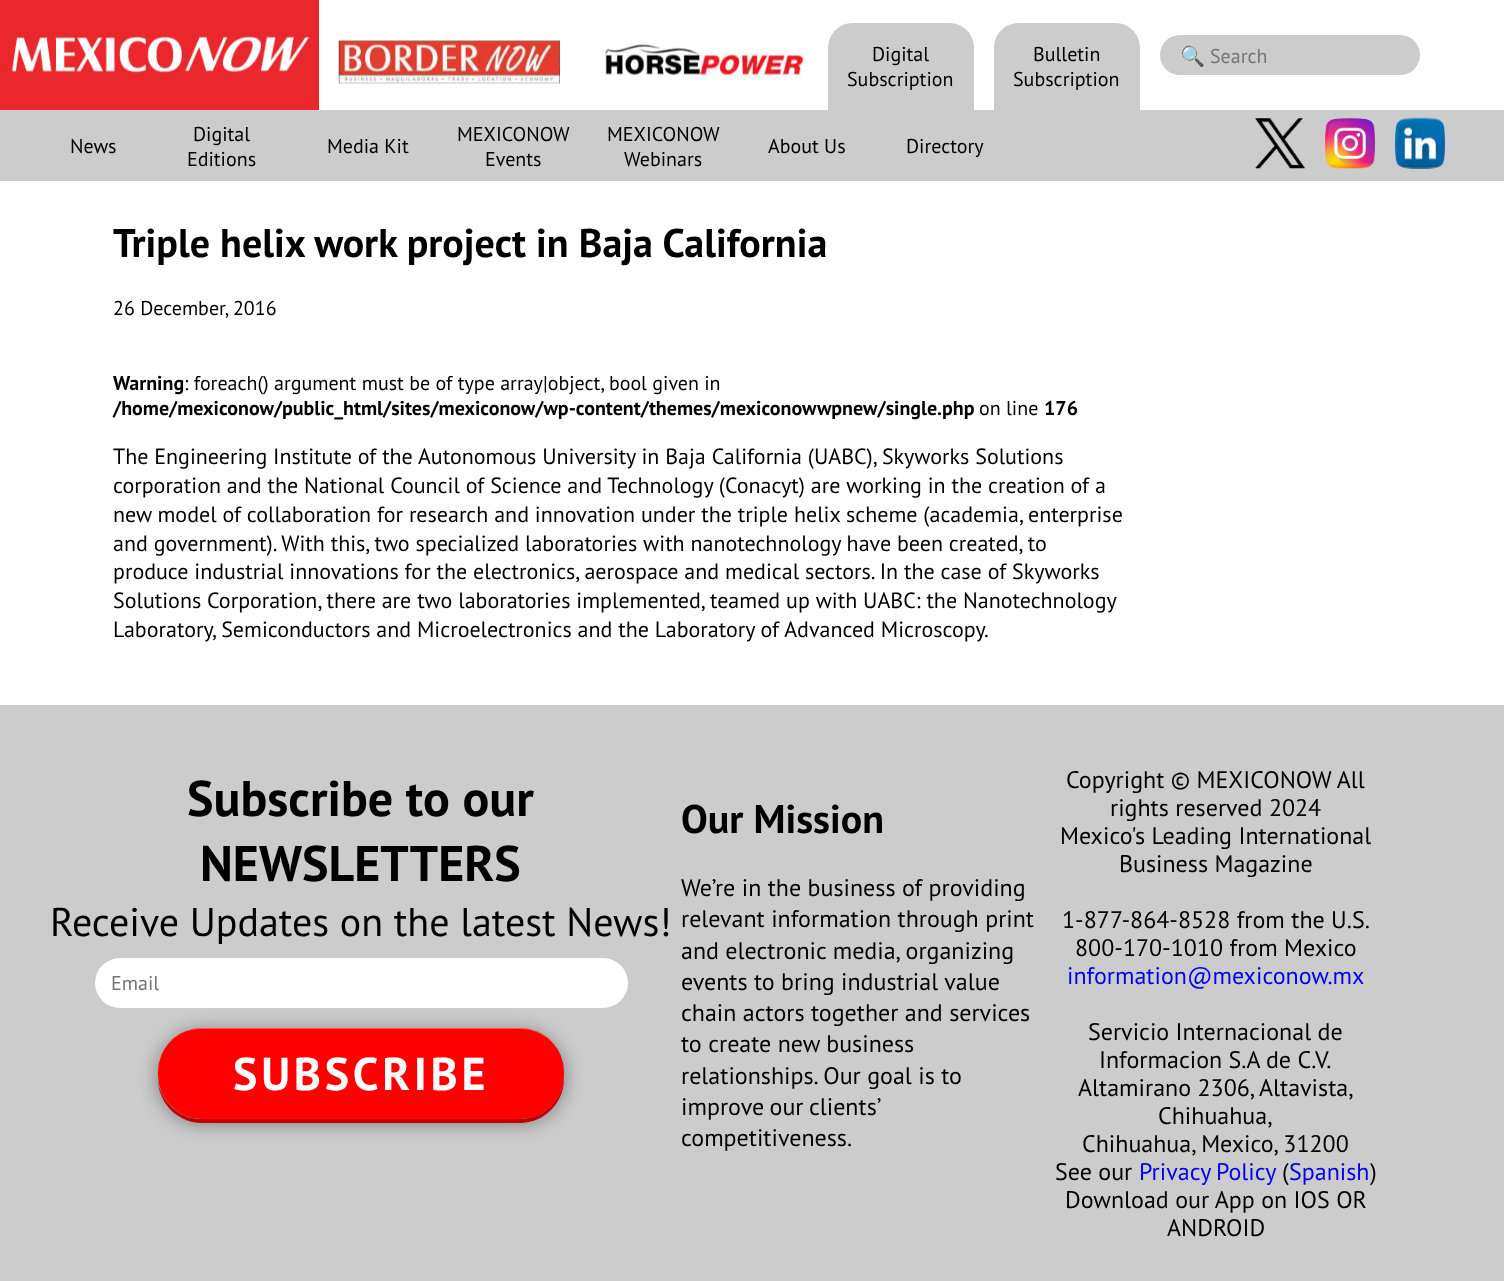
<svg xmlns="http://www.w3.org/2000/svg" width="1504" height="1281">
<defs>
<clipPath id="clip1"><rect x="1180" y="43" width="233" height="25"/></clipPath>
</defs>
<rect width="100%" height="100%" fill="#fff"/>
<rect width="319" height="110" fill="#e9272d"/>
<image x="0" y="36" width="309" height="40" href="media/1.png"/>
<image x="338" y="40" width="222" height="44" href="media/2.png"/>
<image x="601" y="40" width="207" height="41" href="media/3.png"/>
<path d="M853 23h96c14 0 25 11 25 25v62h-146v-62c0-14 11-25 25-25z" fill="#ccc"/>
<text x="872" y="61" style="font-family:PT Sans;font-size:20px;fill:#000">Digital</text>
<text x="847" y="86" style="font-family:PT Sans;font-size:20px;fill:#000">Subscription</text>
<path d="M1019 23h96c14 0 25 11 25 25v62h-146v-62c0-14 11-25 25-25z" fill="#ccc"/>
<text x="1033" y="61" style="font-family:PT Sans;font-size:20px;fill:#000">Bulletin</text>
<text x="1013" y="86" style="font-family:PT Sans;font-size:20px;fill:#000">Subscription</text>
<rect x="1160" y="35" width="260" height="40" rx="20" fill="#ccc"/>
<g clip-path="url(#clip1)">
<text x="1180" y="63" style="font-family:Noto Color Emoji;font-size:20px;fill:#757575">🔍</text>
</g>
<text x="1210" y="63" style="font-family:PT Sans;font-size:20px;fill:#757575">Search</text>
<rect y="110" width="1504" height="71" fill="#ccc"/>
<text x="70" y="153" style="font-family:PT Sans;font-size:20px;fill:#000">News</text>
<text x="193" y="141" style="font-family:PT Sans;font-size:20px;fill:#000">Digital</text>
<text x="187" y="166" style="font-family:PT Sans;font-size:20px;fill:#000">Editions</text>
<text x="327" y="153" style="font-family:PT Sans;font-size:20px;fill:#000">Media Kit</text>
<text x="457" y="141" style="font-family:PT Sans;font-size:20px;fill:#000">MEXICONOW</text>
<text x="485" y="166" style="font-family:PT Sans;font-size:20px;fill:#000">Events</text>
<text x="607" y="141" style="font-family:PT Sans;font-size:20px;fill:#000">MEXICONOW</text>
<text x="624" y="166" style="font-family:PT Sans;font-size:20px;fill:#000">Webinars</text>
<text x="768" y="153" style="font-family:PT Sans;font-size:20px;fill:#000">About Us</text>
<text x="906" y="153" style="font-family:PT Sans;font-size:20px;fill:#000">Directory</text>
<image x="1255" y="118" width="50" height="51" href="media/4.png"/>
<image x="1325" y="118" width="50" height="51" href="media/5.png"/>
<image x="1395" y="117" width="50" height="52" href="media/6.png"/>
<image x="112" y="181" width="1001" height="2" href="media/7.png"/>
<text x="113" y="257" style="font-family:PT Sans;font-size:40px;font-weight:bold;fill:#000">Triple helix work project in Baja California</text>
<text x="113" y="315" style="font-family:PT Sans;font-size:20px;fill:#000">26 December, 2016</text>
<text x="113" y="390" style="font-family:PT Sans;font-size:20px;font-weight:bold;fill:#000">Warning</text>
<text x="184" y="390" style="font-family:PT Sans;font-size:20px;fill:#000">: foreach() argument must be of type array|object, bool given in</text>
<text x="113" y="415" style="font-family:PT Sans;font-size:20px;font-weight:bold;fill:#000">/home/mexiconow/public_html/sites/mexiconow/wp-content/themes/mexiconowwpnew/single.php</text>
<text x="979" y="415" style="font-family:PT Sans;font-size:20px;fill:#000">on line</text>
<text x="1044" y="415" style="font-family:PT Sans;font-size:20px;font-weight:bold;fill:#000">176</text>
<text x="113" y="464" style="font-family:PT Sans;font-size:22px;fill:#000">The Engineering Institute of the Autonomous University in Baja California (UABC), Skyworks Solutions</text>
<text x="113" y="493" style="font-family:PT Sans;font-size:22px;fill:#000">corporation and the National Council of Science and Technology (Conacyt) are working in the creation of a</text>
<text x="113" y="522" style="font-family:PT Sans;font-size:22px;fill:#000">new model of collaboration for research and innovation under the triple helix scheme (academia, enterprise</text>
<text x="113" y="551" style="font-family:PT Sans;font-size:22px;fill:#000">and government). With this, two specialized laboratories with nanotechnology have been created, to</text>
<text x="113" y="579" style="font-family:PT Sans;font-size:22px;fill:#000">produce industrial innovations for the electronics, aerospace and medical sectors. In the case of Skyworks</text>
<text x="113" y="608" style="font-family:PT Sans;font-size:22px;fill:#000">Solutions Corporation, there are two laboratories implemented, teamed up with UABC: the Nanotechnology</text>
<text x="113" y="637" style="font-family:PT Sans;font-size:22px;fill:#000">Laboratory, Semiconductors and Microelectronics and the Laboratory of Advanced Microscopy.</text>
<rect y="705" width="1504" height="576" fill="#ccc"/>
<text x="187" y="816" style="font-family:PT Sans;font-size:50px;font-weight:bold;fill:#000">Subscribe to our</text>
<text x="200" y="881" style="font-family:PT Sans;font-size:50px;font-weight:bold;fill:#000">NEWSLETTERS</text>
<text x="50" y="936" style="font-family:PT Sans;font-size:40px;fill:#000">Receive Updates on the latest News!</text>
<rect x="95" y="958" width="533" height="50" rx="25" fill="#fff"/>
<text x="111" y="990" style="font-family:PT Sans;font-size:20px;fill:#757575">Email</text>
<rect x="158" y="1031" width="406" height="92" rx="44" fill="#00000066" filter="blur(9.5px)"/>
<path d="M158 1082c2 23 21 41 44 41h318c24 0 44-20 44-44v-9v5c0 24-20 44-44 44h-319c-21 0-39-16-43-37z" fill="#c00106"/>
<rect x="158" y="1028" width="406" height="91" rx="44" fill="#fe0000"/>
<path d="M201 1029h319c24 0 44 19 44 43c0-24-20-44-44-44h-318c-19 0-35 12-41 29c6-17 21-28 40-28z" fill="#ffffff4d"/>
<text x="233" y="1090" style="font-family:PT Sans;font-size:46px;font-weight:bold;letter-spacing:3.75px;fill:#fff">SUBSCRIBE</text>
<text x="681" y="833" style="font-family:PT Sans;font-size:40px;font-weight:bold;fill:#000">Our Mission</text>
<text x="681" y="896" style="font-family:PT Sans;font-size:24px;fill:#000">We’re in the business of providing</text>
<text x="681" y="927" style="font-family:PT Sans;font-size:24px;fill:#000">relevant information through print</text>
<text x="681" y="959" style="font-family:PT Sans;font-size:24px;fill:#000">and electronic media, organizing</text>
<text x="681" y="990" style="font-family:PT Sans;font-size:24px;fill:#000">events to bring industrial value</text>
<text x="681" y="1021" style="font-family:PT Sans;font-size:24px;fill:#000">chain actors together and services</text>
<text x="681" y="1052" style="font-family:PT Sans;font-size:24px;fill:#000">to create new business</text>
<text x="681" y="1084" style="font-family:PT Sans;font-size:24px;fill:#000">relationships. Our goal is to</text>
<text x="681" y="1115" word-spacing="-1" style="font-family:PT Sans;font-size:24px;fill:#000">improve our clients’</text>
<text x="681" y="1146" style="font-family:PT Sans;font-size:24px;fill:#000">competitiveness.</text>
<text x="1066" y="788" style="font-family:PT Sans;font-size:24px;fill:#000">Copyright © MEXICONOW All</text>
<text x="1110" y="816" style="font-family:PT Sans;font-size:24px;fill:#000">rights reserved 2024</text>
<text x="1060" y="844" style="font-family:PT Sans;font-size:24px;fill:#000">Mexico's Leading International</text>
<text x="1119" y="872" style="font-family:PT Sans;font-size:24px;fill:#000">Business Magazine</text>
<text x="1062" y="928" style="font-family:PT Sans;font-size:24px;fill:#000">1-877-864-8528 from the U.S.</text>
<text x="1075" y="956" style="font-family:PT Sans;font-size:24px;fill:#000">800-170-1010 from Mexico</text>
<text x="1067" y="984" style="font-family:PT Sans;font-size:24px;fill:#00e">information@mexiconow.mx</text>
<text x="1088" y="1040" style="font-family:PT Sans;font-size:24px;fill:#000">Servicio Internacional de</text>
<text x="1099" y="1068" style="font-family:PT Sans;font-size:24px;fill:#000">Informacion S.A de C.V.</text>
<text x="1078" y="1096" style="font-family:PT Sans;font-size:24px;fill:#000">Altamirano 2306, Altavista,</text>
<text x="1158" y="1124" style="font-family:PT Sans;font-size:24px;fill:#000">Chihuahua,</text>
<text x="1082" y="1152" style="font-family:PT Sans;font-size:24px;fill:#000">Chihuahua, Mexico, 31200</text>
<text x="1055" y="1180" style="font-family:PT Sans;font-size:24px;fill:#000">See our</text>
<text x="1139" y="1180" word-spacing="-1" style="font-family:PT Sans;font-size:24px;fill:#00e">Privacy Policy</text>
<text x="1282" y="1180" style="font-family:PT Sans;font-size:24px;fill:#000">(</text>
<text x="1289" y="1180" style="font-family:PT Sans;font-size:24px;fill:#00e">Spanish</text>
<text x="1370" y="1180" style="font-family:PT Sans;font-size:24px;fill:#000">)</text>
<text x="1065" y="1208" style="font-family:PT Sans;font-size:24px;fill:#000">Download our App on IOS OR</text>
<text x="1167" y="1236" style="font-family:PT Sans;font-size:24px;fill:#000">ANDROID</text>
</svg>
